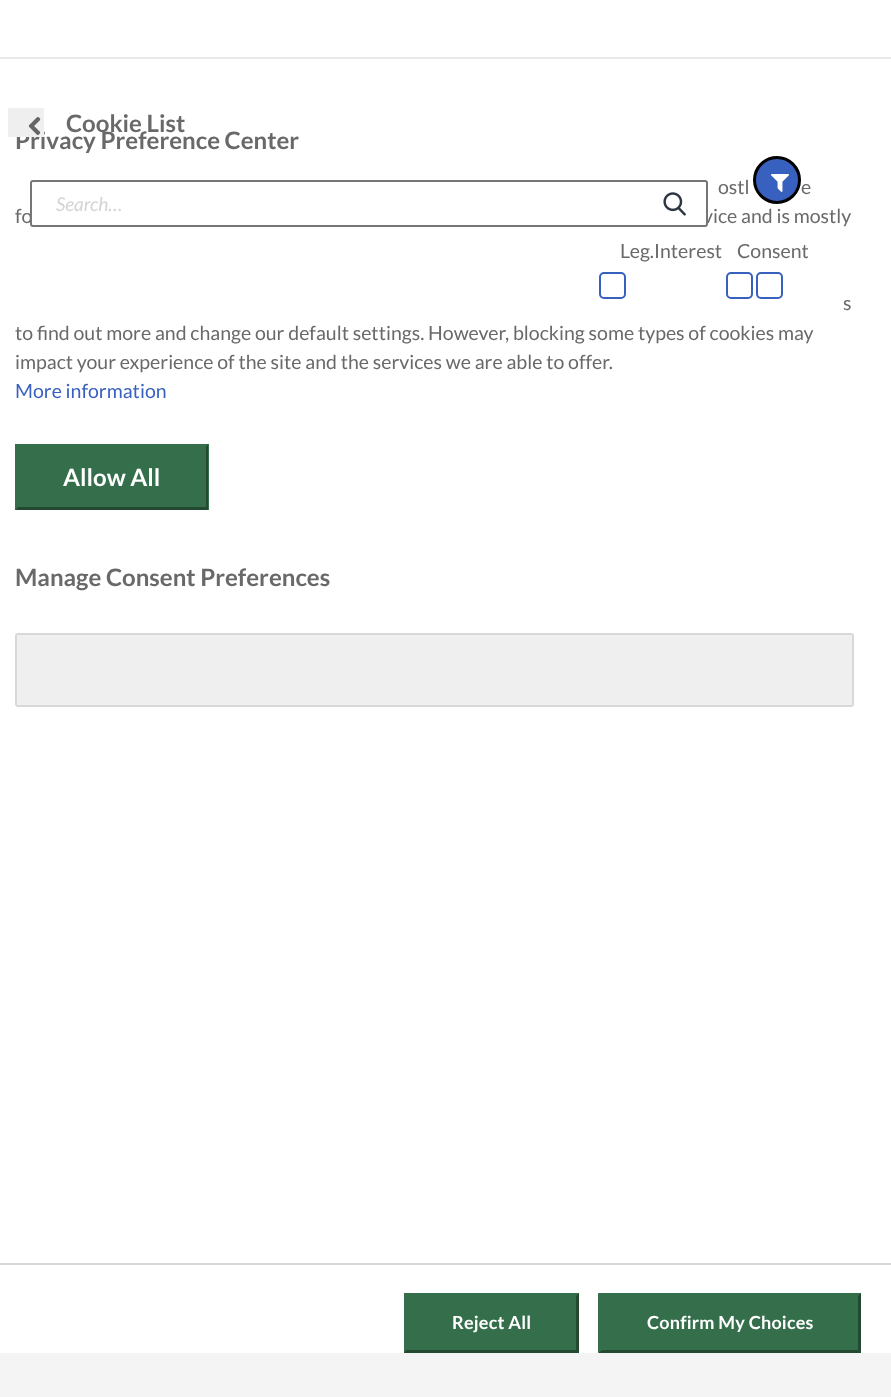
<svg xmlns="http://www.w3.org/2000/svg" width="891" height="1397">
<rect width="100%" height="100%" fill="#fff"/>
<rect y="57" width="891" height="2" fill="#e9e9e9"/>
<text x="15" y="149" style="font-family:Lato;font-size:24px;font-weight:bold;fill:#696969">Privacy Preference Center</text>
<rect x="8" y="108" width="36" height="29" fill="#efefef"/>
<image x="28" y="117" width="13" height="18" href="media/1.png"/>
<text x="66" y="132" style="font-family:Lato;font-size:24px;font-weight:bold;fill:#696969">Cookie List</text>
<text x="15" y="223" style="font-family:Lato;font-size:19.5px;fill:#696969">fo</text>
<text x="703" y="223" style="font-family:Lato;font-size:19.5px;fill:#696969">vice and is mostly</text>
<rect x="31" y="181" width="676" height="45" rx="2" fill="#fff" stroke="#767676" stroke-width="2"/>
<text x="56" y="211" style="font-family:Lato;font-size:19px;font-style:italic;fill:#d4d4d4">Search…</text>
<image x="663" y="192" width="23" height="24" href="media/2.png"/>
<circle cx="777" cy="180" r="22.5" fill="#3860be" stroke="#000" stroke-width="3"/>
<image x="771" y="174" width="18" height="18" href="media/3.png"/>
<text x="620" y="258" style="font-family:Lato;font-size:19.5px;fill:#696969">Leg.Interest</text>
<text x="737" y="258" style="font-family:Lato;font-size:19.5px;fill:#696969">Consent</text>
<rect x="600" y="273" width="25" height="25" rx="4" fill="none" stroke="#3860be" stroke-width="2"/>
<rect x="727" y="273" width="25" height="25" rx="4" fill="none" stroke="#3860be" stroke-width="2"/>
<rect x="757" y="273" width="25" height="25" rx="4" fill="none" stroke="#3860be" stroke-width="2"/>
<text x="718" y="194" style="font-family:Lato;font-size:19.5px;fill:#696969">ostl</text>
<text x="801" y="194" style="font-family:Lato;font-size:19.5px;fill:#696969">e</text>
<text x="843" y="310" style="font-family:Lato;font-size:19.5px;fill:#696969">s</text>
<text x="15" y="340" style="font-family:Lato;font-size:19.5px;fill:#696969">to find out more and change our default settings. However, blocking some types of cookies may</text>
<text x="15" y="369" style="font-family:Lato;font-size:19.5px;fill:#696969">impact your experience of the site and the services we are able to offer.</text>
<text x="15" y="398" style="font-family:Lato;font-size:19.5px;fill:#3860be">More information</text>
<rect x="15" y="444" width="194" height="66" fill="#346e4a"/>
<path d="M208 444v66l-2-3v-60z" fill="#234931"/>
<path d="M208 510h-193l3-3h188z" fill="#234931"/>
<path d="M15 510v-66l3 3v60z" fill="#346e4a"/>
<text x="63" y="486" style="font-family:Lato;font-size:24px;font-weight:bold;fill:#fff">Allow All</text>
<text x="15" y="586" style="font-family:Lato;font-size:24px;font-weight:bold;fill:#696969">Manage Consent Preferences</text>
<rect x="16" y="634" width="837" height="72" rx="2" fill="none" stroke="#d8d8d8" stroke-width="2"/>
<rect x="17" y="635" width="835" height="70" fill="#efefef"/>
<rect y="1263" width="891" height="2" fill="#d8d8d8"/>
<rect x="404" y="1293" width="175" height="60" fill="#346e4a"/>
<path d="M579 1293v60l-3-3v-54z" fill="#234931"/>
<path d="M579 1353h-175l2-3h170z" fill="#234931"/>
<path d="M404 1353v-60l2 3v54z" fill="#346e4a"/>
<text x="452" y="1329" style="font-family:Lato;font-size:18px;font-weight:bold;letter-spacing:0.2px;fill:#fff">Reject All</text>
<rect x="599" y="1293" width="262" height="60" fill="#346e4a"/>
<path d="M598 1293h263l-3 3h-256z" fill="#346e4a"/>
<path d="M861 1293v60l-3-3v-54z" fill="#234931"/>
<path d="M861 1353h-263l4-3h256z" fill="#234931"/>
<path d="M598 1353v-60l4 3v54z" fill="#346e4a"/>
<text x="647" y="1329" style="font-family:Lato;font-size:18px;font-weight:bold;letter-spacing:0.2px;fill:#fff">Confirm My Choices</text>
<rect y="1353" width="891" height="44" fill="#f4f4f4"/>
</svg>
